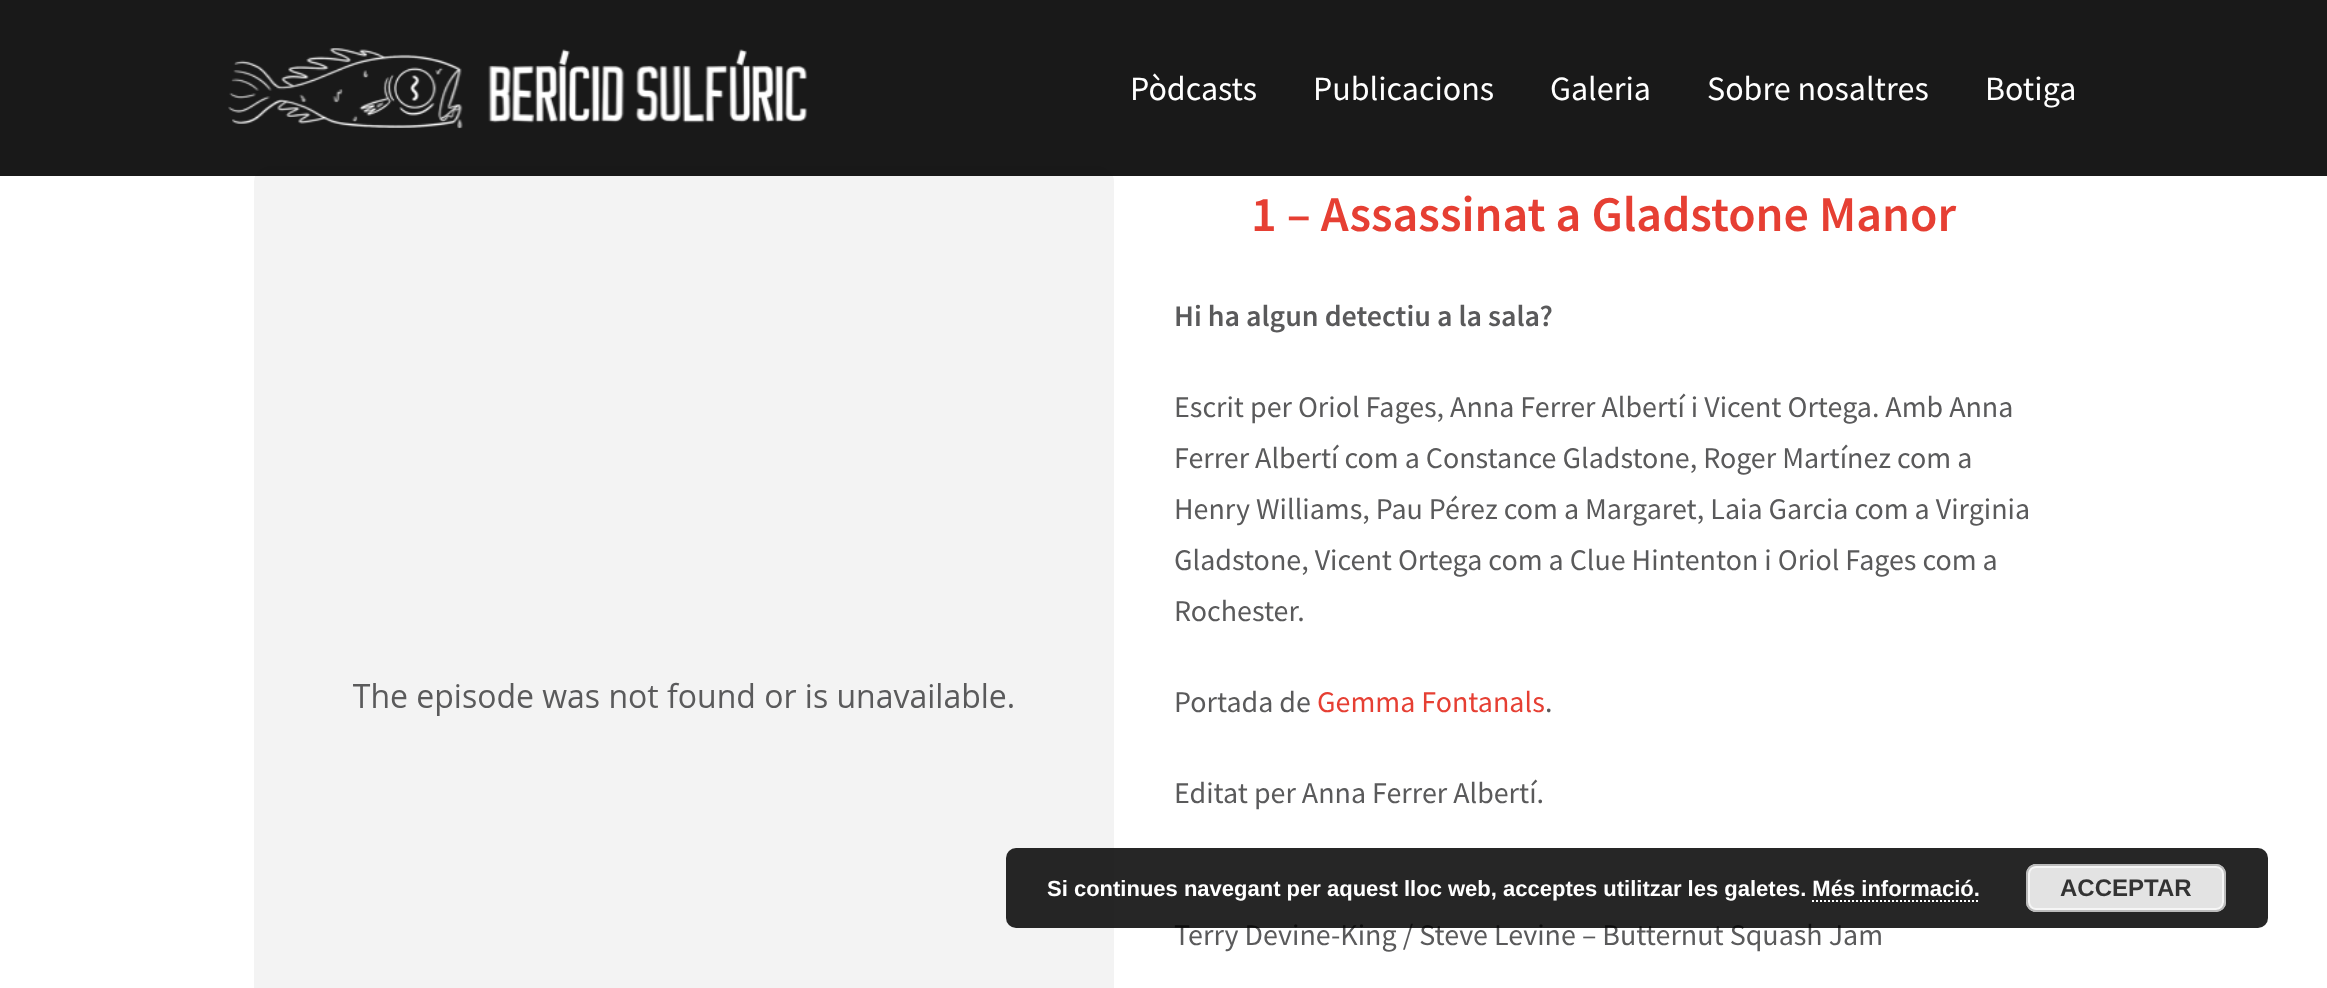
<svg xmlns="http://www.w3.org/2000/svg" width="2327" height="988">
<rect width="100%" height="100%" fill="#fff"/>
<image x="254" y="166" width="860" height="822" href="media/2.png"/>
<rect width="2327" height="176" fill="#000000e6"/>
<image x="228" y="48" width="580" height="81" href="media/1.png"/>
<text x="1130" y="100" style="font-family:Source Sans Pro;font-size:34px;fill:#fff">Pòdcasts</text>
<text x="1313" y="100" style="font-family:Source Sans Pro;font-size:34px;fill:#fff">Publicacions</text>
<text x="1550" y="100" style="font-family:Source Sans Pro;font-size:34px;fill:#fff">Galeria</text>
<text x="1707" y="100" style="font-family:Source Sans Pro;font-size:34px;fill:#fff">Sobre nosaltres</text>
<text x="1985" y="100" style="font-family:Source Sans Pro;font-size:34px;fill:#fff">Botiga</text>
<text x="1251" y="231" style="font-family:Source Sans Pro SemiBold;font-size:50px;font-weight:600;fill:#e63f33">1 – Assassinat a Gladstone Manor</text>
<text x="1174" y="326" style="font-family:Source Sans Pro SemiBold;font-size:30px;font-weight:600;fill:#5a5a5b">Hi ha algun detectiu a la sala?</text>
<text x="1174" y="417" style="font-family:Source Sans Pro;font-size:30px;fill:#5a5a5b">Escrit per Oriol Fages, Anna Ferrer Albertí i Vicent Ortega. Amb Anna</text>
<text x="1174" y="468" style="font-family:Source Sans Pro;font-size:30px;fill:#5a5a5b">Ferrer Albertí com a Constance Gladstone, Roger Martínez com a</text>
<text x="1174" y="519" style="font-family:Source Sans Pro;font-size:30px;fill:#5a5a5b">Henry Williams, Pau Pérez com a Margaret, Laia Garcia com a Virginia</text>
<text x="1174" y="570" style="font-family:Source Sans Pro;font-size:30px;fill:#5a5a5b">Gladstone, Vicent Ortega com a Clue Hintenton i Oriol Fages com a</text>
<text x="1174" y="621" style="font-family:Source Sans Pro;font-size:30px;fill:#5a5a5b">Rochester.</text>
<text x="1174" y="712" style="font-family:Source Sans Pro;font-size:30px;fill:#5a5a5b">Portada de</text>
<text x="1317" y="712" style="font-family:Source Sans Pro;font-size:30px;fill:#e63f33">Gemma Fontanals</text>
<text x="1545" y="712" style="font-family:Source Sans Pro;font-size:30px;fill:#5a5a5b">.</text>
<text x="1174" y="803" style="font-family:Source Sans Pro;font-size:30px;fill:#5a5a5b">Editat per Anna Ferrer Albertí.</text>
<text x="1174" y="945" style="font-family:Source Sans Pro;font-size:30px;fill:#5a5a5b">Terry Devine-King / Steve Levine – Butternut Squash Jam</text>
<rect x="1006" y="848" width="1262" height="80" rx="10" fill="#000000d9"/>
<text x="1047" y="896" style="font-family:Liberation Sans;font-size:22px;font-weight:bold;fill:#fff">Si continues navegant per aquest lloc web, acceptes utilitzar les galetes. Més informació.</text>
<rect x="2026" y="864" width="200" height="48" rx="10" fill="#e3e3e3"/>
<rect x="2029" y="867" width="194" height="42" rx="7" fill="none" stroke="#f6f6f6" stroke-width="2"/>
<rect x="2027" y="865" width="198" height="46" rx="9" fill="none" stroke="#bbb" stroke-width="2"/>
<text x="2060" y="896" style="font-family:Liberation Sans;font-size:24px;font-weight:bold;fill:#333">ACCEPTAR</text>
<path d="M1812 901h168" fill="none" stroke="#fff" stroke-width="2" stroke-dasharray="2 2"/>
</svg>
